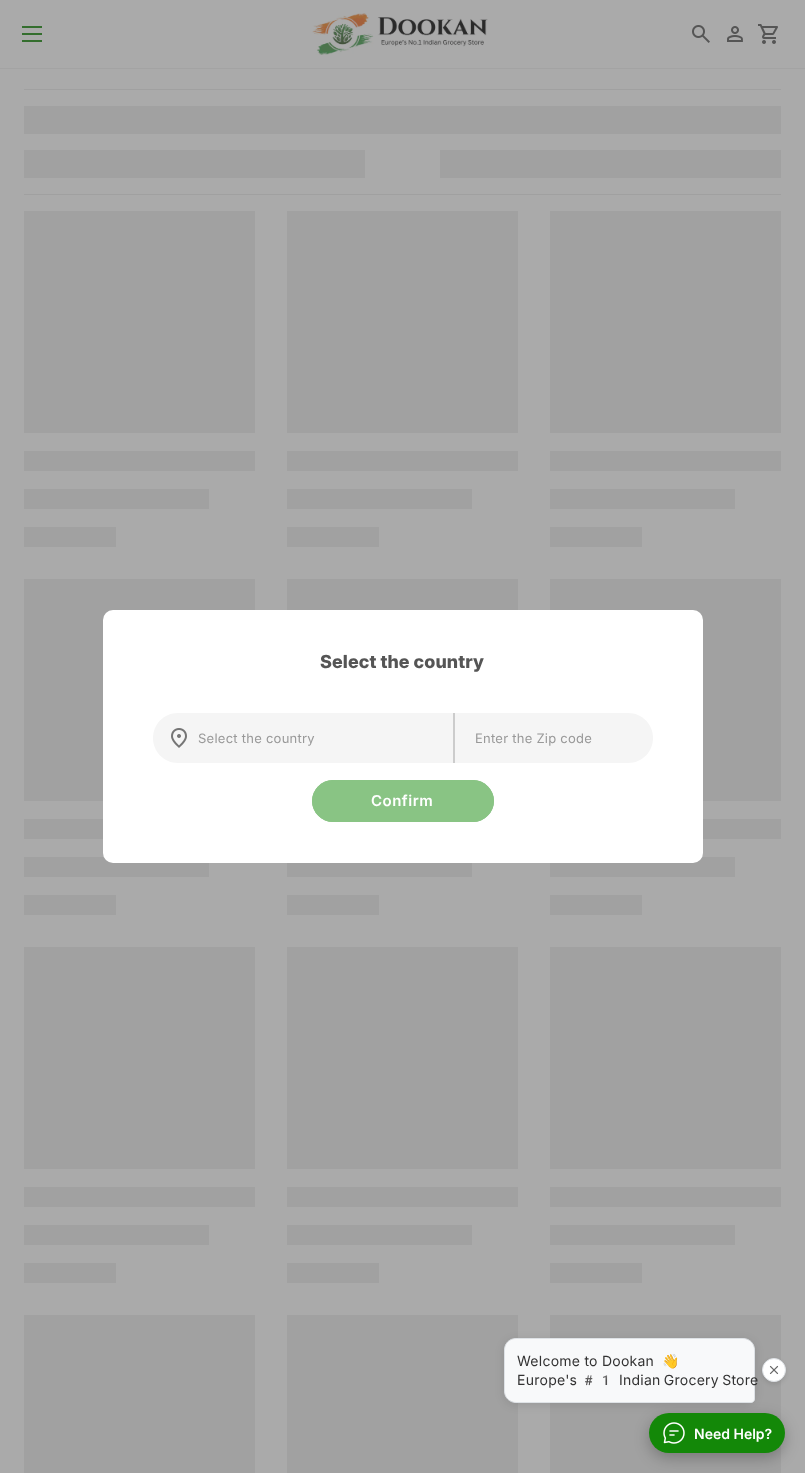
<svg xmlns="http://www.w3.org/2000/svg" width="805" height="1473">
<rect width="100%" height="100%" fill="#aaa"/>
<rect x="24" y="89" width="757" height="1" fill="#a0a0a0"/>
<rect x="24" y="194" width="757" height="1" fill="#a0a0a0"/>
<rect x="24" y="106" width="757" height="28" fill="#a1a1a1"/>
<rect x="24" y="150" width="341" height="28" fill="#a1a1a1"/>
<rect x="440" y="150" width="341" height="28" fill="#a1a1a1"/>
<rect x="24" y="211" width="231" height="222" fill="#a1a1a1"/>
<rect x="24" y="451" width="231" height="20" fill="#a1a1a1"/>
<rect x="24" y="489" width="185" height="20" fill="#a1a1a1"/>
<rect x="24" y="527" width="92" height="20" fill="#a1a1a1"/>
<rect x="287" y="211" width="231" height="222" fill="#a1a1a1"/>
<rect x="287" y="451" width="231" height="20" fill="#a1a1a1"/>
<rect x="287" y="489" width="185" height="20" fill="#a1a1a1"/>
<rect x="287" y="527" width="92" height="20" fill="#a1a1a1"/>
<rect x="550" y="211" width="231" height="222" fill="#a1a1a1"/>
<rect x="550" y="451" width="231" height="20" fill="#a1a1a1"/>
<rect x="550" y="489" width="185" height="20" fill="#a1a1a1"/>
<rect x="550" y="527" width="92" height="20" fill="#a1a1a1"/>
<rect x="24" y="579" width="231" height="222" fill="#a1a1a1"/>
<rect x="24" y="819" width="79" height="20" fill="#a1a1a1"/>
<rect x="24" y="857" width="185" height="20" fill="#a1a1a1"/>
<rect x="24" y="895" width="92" height="20" fill="#a1a1a1"/>
<rect x="287" y="579" width="231" height="31" fill="#a1a1a1"/>
<rect x="287" y="863" width="185" height="14" fill="#a1a1a1"/>
<rect x="287" y="895" width="92" height="20" fill="#a1a1a1"/>
<rect x="550" y="579" width="231" height="222" fill="#a1a1a1"/>
<rect x="703" y="819" width="78" height="20" fill="#a1a1a1"/>
<rect x="550" y="857" width="185" height="20" fill="#a1a1a1"/>
<rect x="550" y="895" width="92" height="20" fill="#a1a1a1"/>
<rect x="24" y="947" width="231" height="222" fill="#a1a1a1"/>
<rect x="24" y="1187" width="231" height="20" fill="#a1a1a1"/>
<rect x="24" y="1225" width="185" height="20" fill="#a1a1a1"/>
<rect x="24" y="1263" width="92" height="20" fill="#a1a1a1"/>
<rect x="287" y="947" width="231" height="222" fill="#a1a1a1"/>
<rect x="287" y="1187" width="231" height="20" fill="#a1a1a1"/>
<rect x="287" y="1225" width="185" height="20" fill="#a1a1a1"/>
<rect x="287" y="1263" width="92" height="20" fill="#a1a1a1"/>
<rect x="550" y="947" width="231" height="222" fill="#a1a1a1"/>
<rect x="550" y="1187" width="231" height="20" fill="#a1a1a1"/>
<rect x="550" y="1225" width="185" height="20" fill="#a1a1a1"/>
<rect x="550" y="1263" width="92" height="20" fill="#a1a1a1"/>
<rect x="24" y="1315" width="231" height="158" fill="#a1a1a1"/>
<rect x="287" y="1315" width="231" height="158" fill="#a1a1a1"/>
<rect x="550" y="1315" width="231" height="158" fill="#a1a1a1"/>
<rect y="68" width="805" height="1" fill="#a3a3a3"/>
<image x="22" y="26" width="20" height="16" href="media/1.png"/>
<image x="312" y="13" width="176" height="42" href="media/2.png"/>
<image x="692" y="25" width="18" height="18" href="media/3.png"/>
<image x="727" y="26" width="16" height="16" href="media/4.png"/>
<image x="758" y="24" width="20" height="20" href="media/5.png"/>
<rect x="103" y="610" width="600" height="253" rx="10" fill="#fff"/>
<text x="320" y="668" style="font-family:Inter;font-size:18px;font-weight:800;letter-spacing:0.1px;fill:#555">Select the country</text>
<path d="M178 713h275v50h-275c-14 0-25-11-25-25c0-14 11-25 25-25z" fill="#f5f5f5"/>
<image x="171" y="728" width="16" height="20" href="media/6.png"/>
<text x="198" y="743" style="font-family:Inter;font-size:13px;letter-spacing:0.25px;fill:#999">Select the country</text>
<rect x="453" y="713" width="2" height="50" fill="#ccc"/>
<path d="M455 713h173c14 0 25 11 25 25c0 14-11 25-25 25h-173z" fill="#f5f5f5"/>
<text x="475" y="743" style="font-family:Inter;font-size:13px;letter-spacing:0.25px;fill:#999">Enter the Zip code</text>
<rect x="312" y="780" width="182" height="42" rx="21" fill="#89c484"/>
<rect x="312.5" y="780.5" width="181" height="41" rx="20.5" fill="none" stroke="#89c484"/>
<text x="371" y="806" style="font-family:Inter;font-size:15px;font-weight:600;letter-spacing:0.5px;fill:#fff">Confirm</text>
<rect x="504" y="1340" width="251" height="65" rx="12" fill="#0000001a" filter="blur(5px)"/>
<path d="M516 1338.5h227c6.5 0 11.5 5 11.5 11.5v49c0 2-1.5 3.5-3.5 3.5h-235c-6.5 0-11.5-5-11.5-11.5v-41c0-6.5 5-11.5 11.5-11.5z" fill="#f8f9fa" stroke="#dee2e6"/>
<text x="517" y="1366" style="font-family:Inter;font-size:14px;letter-spacing:0.25px;fill:#333">Welcome to Dookan</text>
<text x="662" y="1366" style="font-family:Noto Color Emoji;font-size:14px;letter-spacing:0.25px;fill:#333">👋</text>
<text x="517" y="1385" style="font-family:Inter;font-size:14px;letter-spacing:0.25px;fill:#333">Europe's</text>
<text x="580" y="1385" style="font-family:Noto Color Emoji;font-size:14px;letter-spacing:0.25px;fill:#333">#1</text>
<text x="619" y="1385" word-spacing="-1" style="font-family:Inter;font-size:14px;letter-spacing:0.25px;fill:#333">Indian Grocery Store</text>
<rect x="762" y="1360" width="24" height="24" rx="12" fill="#0000001a" filter="blur(2px)"/>
<circle cx="774" cy="1370" r="11.5" fill="#fff" stroke="#dee2e6"/>
<image x="769" y="1365" width="10" height="10" href="media/7.png"/>
<rect x="649" y="1418" width="136" height="40" rx="20" fill="#00000040" filter="blur(7.5px)"/>
<rect x="649" y="1413" width="136" height="40" rx="20" fill="#138808"/>
<image x="663" y="1422" width="22" height="22" href="media/8.png"/>
<text x="694" y="1439" style="font-family:Inter;font-size:14px;font-weight:600;fill:#fff">Need Help?</text>
</svg>
